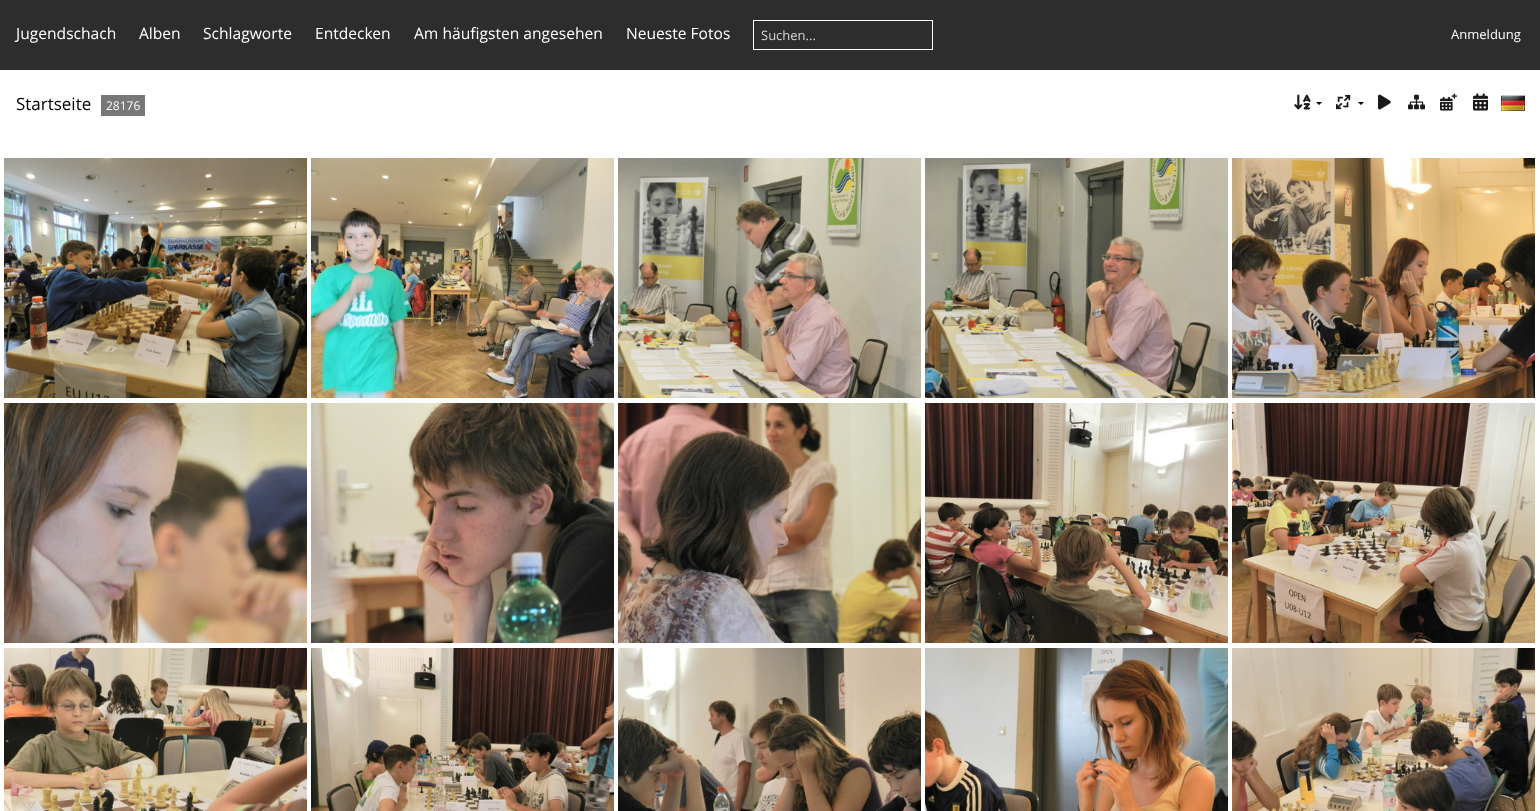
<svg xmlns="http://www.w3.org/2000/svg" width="1540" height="811">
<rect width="100%" height="100%" fill="#fff"/>
<rect width="1540" height="70" fill="#2d2d2d"/>
<text x="16" y="39" style="font-family:Open Sans;font-size:15.6px;fill:#fff">Jugendschach</text>
<text x="139" y="39" style="font-family:Open Sans;font-size:15.6px;fill:#fff">Alben</text>
<text x="203" y="39" style="font-family:Open Sans;font-size:15.6px;fill:#fff">Schlagworte</text>
<text x="315" y="39" style="font-family:Open Sans;font-size:15.6px;fill:#fff">Entdecken</text>
<text x="414" y="39" style="font-family:Open Sans;font-size:15.6px;fill:#fff">Am häufigsten angesehen</text>
<text x="626" y="39" style="font-family:Open Sans;font-size:15.6px;fill:#fff">Neueste Fotos</text>
<rect x="753.5" y="20.5" width="179" height="29" fill="none" stroke="#fff"/>
<text x="761" y="40" style="font-family:Open Sans;font-size:13px;fill:#d6d6d6">Suchen...</text>
<text x="1451" y="39" style="font-family:Open Sans;font-size:13px;fill:#fff">Anmeldung</text>
<text x="16" y="110" style="font-family:Open Sans;font-size:17px;fill:#000">Startseite</text>
<rect x="101" y="95" width="44" height="21" fill="#777"/>
<text x="106" y="110" style="font-family:Open Sans;font-size:12px;fill:#fff">28176</text>
<image x="1294" y="94" width="17" height="16" href="media/1.png"/>
<path d="M1316 102h6l-3 3zm42 0h6l-3 3z" fill="#000"/>
<image x="1440" y="93" width="17" height="18" href="media/2.png"/>
<image x="1473" y="93" width="15" height="18" href="media/3.png"/>
<image x="1336" y="94" width="15" height="16" href="media/4.png"/>
<image x="1378" y="94" width="13" height="16" href="media/5.png"/>
<image x="1408" y="94" width="17" height="16" href="media/6.png"/>
<image x="1501" y="95" width="24" height="16" href="media/7.png"/>
<image x="4" y="158" width="303" height="240" href="media/8.png"/>
<image x="311" y="158" width="303" height="240" href="media/9.png"/>
<image x="618" y="158" width="303" height="240" href="media/10.png"/>
<image x="925" y="158" width="303" height="240" href="media/11.png"/>
<image x="1232" y="158" width="303" height="240" href="media/12.png"/>
<image x="4" y="403" width="303" height="240" href="media/13.png"/>
<image x="311" y="403" width="303" height="240" href="media/14.png"/>
<image x="618" y="403" width="303" height="240" href="media/15.png"/>
<image x="925" y="403" width="303" height="240" href="media/16.png"/>
<image x="1232" y="403" width="303" height="240" href="media/17.png"/>
<image x="4" y="648" width="303" height="163" href="media/18.png"/>
<image x="311" y="648" width="303" height="163" href="media/19.png"/>
<image x="618" y="648" width="303" height="163" href="media/20.png"/>
<image x="925" y="648" width="303" height="163" href="media/21.png"/>
<image x="1232" y="648" width="303" height="163" href="media/22.png"/>
</svg>
